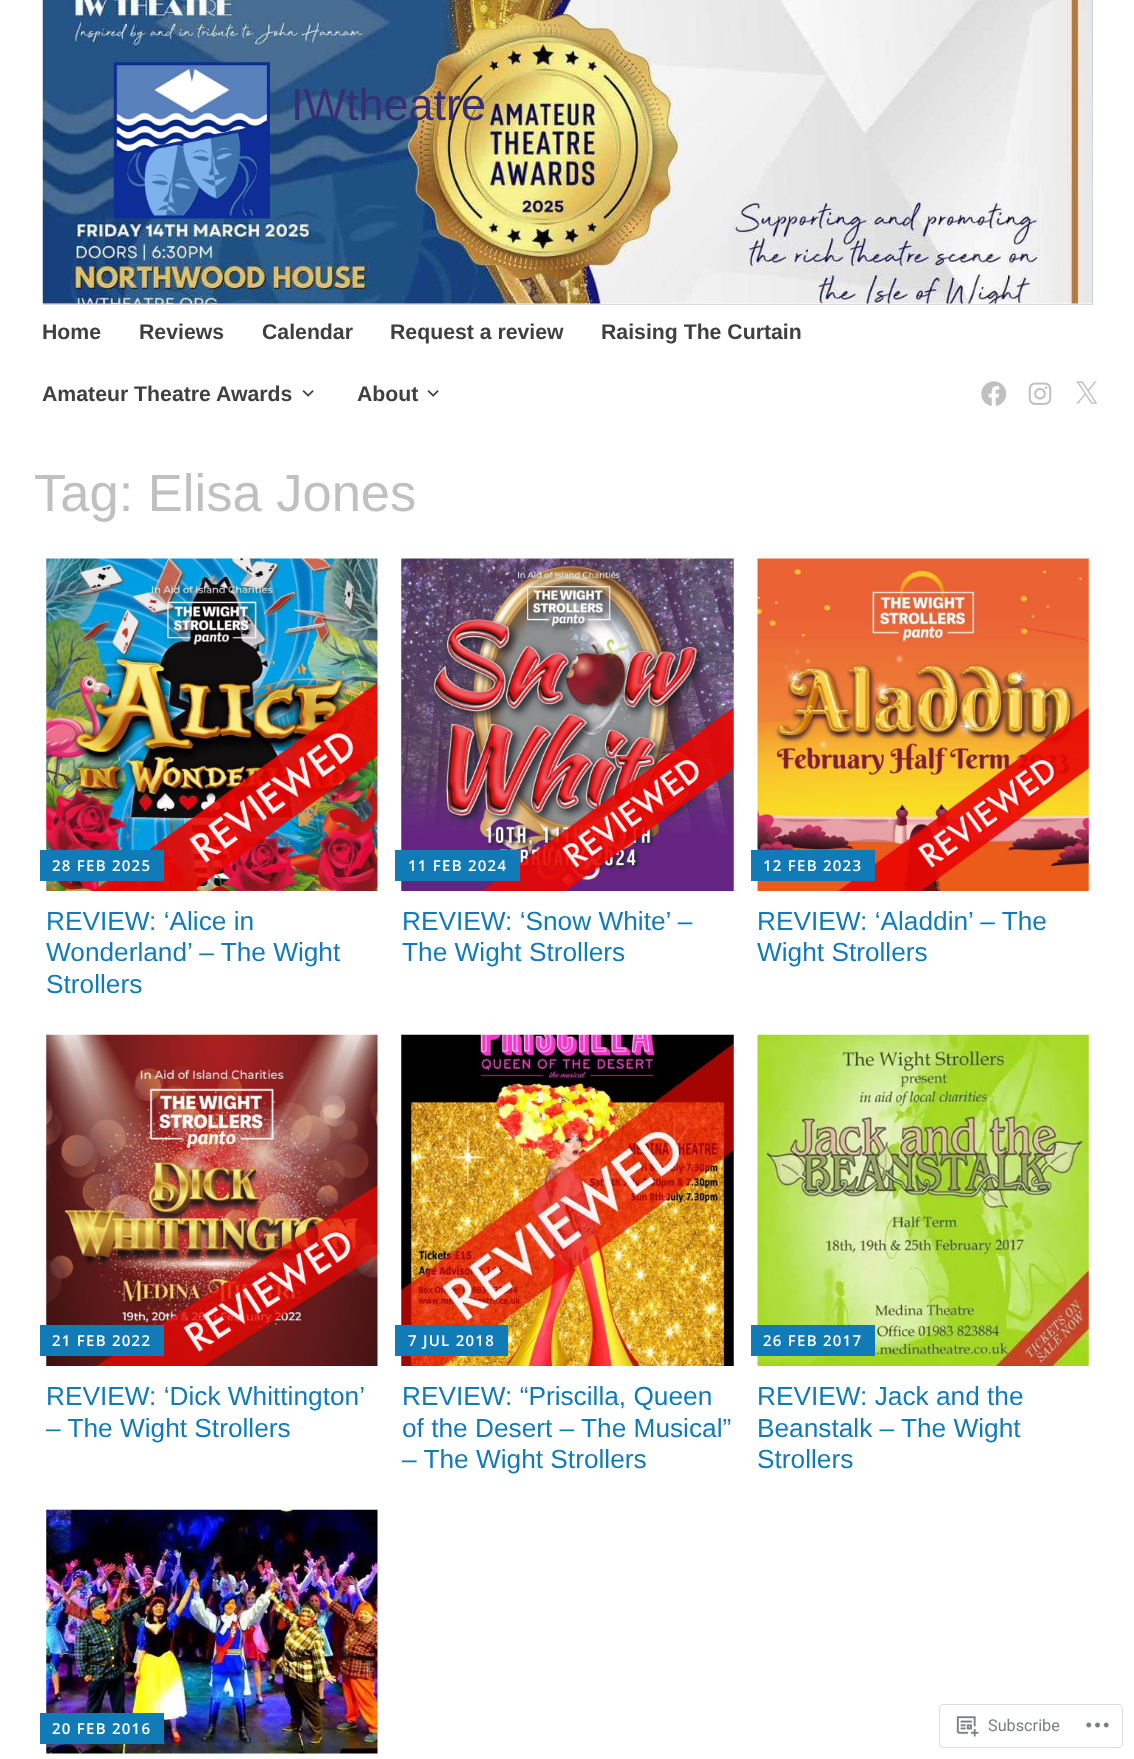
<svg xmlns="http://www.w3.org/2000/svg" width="1134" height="1759">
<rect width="100%" height="100%" fill="#fff"/>
<image x="42" y="0" width="1051" height="304" href="media/1.png"/>
<image x="113" y="62" width="157" height="157" href="media/2.png"/>
<text x="291" y="120" style="font-family:Arimo;font-size:45px;fill:#362e77">IWtheatre</text>
<rect x="43" y="304" width="1050" height="1" fill="#d9d9d9"/>
<text x="42" y="339" style="font-family:Arimo;font-size:21.25px;font-weight:bold;fill:#404040">Home</text>
<text x="139" y="339" style="font-family:Arimo;font-size:21.25px;font-weight:bold;fill:#404040">Reviews</text>
<text x="262" y="339" style="font-family:Arimo;font-size:21.25px;font-weight:bold;fill:#404040">Calendar</text>
<text x="390" y="339" style="font-family:Arimo;font-size:21.25px;font-weight:bold;fill:#404040">Request a review</text>
<text x="601" y="339" style="font-family:Arimo;font-size:21.25px;font-weight:bold;fill:#404040">Raising The Curtain</text>
<text x="42" y="401" style="font-family:Arimo;font-size:21.25px;font-weight:bold;fill:#404040">Amateur Theatre Awards</text>
<image x="302" y="390" width="12" height="7" href="media/3.png"/>
<text x="357" y="401" style="font-family:Arimo;font-size:21.25px;font-weight:bold;fill:#404040">About</text>
<image x="427" y="390" width="12" height="7" href="media/3.png"/>
<image x="981" y="381" width="26" height="25" href="media/4.png"/>
<image x="1028" y="382" width="24" height="23" href="media/5.png"/>
<image x="1076" y="381" width="22" height="23" href="media/6.png"/>
<text x="34" y="511" style="font-family:Arimo;font-size:52.5px;fill:#c0c0c0">Tag: Elisa Jones</text>
<image x="46" y="558" width="332" height="333" href="media/7.png"/>
<rect x="40" y="850" width="124" height="31" fill="#117bb8"/>
<text x="52" y="871" style="font-family:Open Sans;font-size:15px;font-weight:600;letter-spacing:1.25px;fill:#fff">28 FEB 2025</text>
<text x="46" y="930" style="font-family:Arimo;font-size:26.25px;fill:#117bb8">REVIEW: ‘Alice in</text>
<text x="46" y="961" style="font-family:Arimo;font-size:26.25px;fill:#117bb8">Wonderland’ – The Wight</text>
<text x="46" y="993" style="font-family:Arimo;font-size:26.25px;fill:#117bb8">Strollers</text>
<image x="401" y="558" width="333" height="333" href="media/8.png"/>
<rect x="395" y="850" width="125" height="31" fill="#117bb8"/>
<text x="408" y="871" style="font-family:Open Sans;font-size:15px;font-weight:600;letter-spacing:1.25px;fill:#fff">11 FEB 2024</text>
<text x="402" y="930" style="font-family:Arimo;font-size:26.25px;fill:#117bb8">REVIEW: ‘Snow White’ –</text>
<text x="402" y="961" style="font-family:Arimo;font-size:26.25px;fill:#117bb8">The Wight Strollers</text>
<image x="757" y="558" width="332" height="333" href="media/9.png"/>
<rect x="751" y="850" width="124" height="31" fill="#117bb8"/>
<text x="763" y="871" style="font-family:Open Sans;font-size:15px;font-weight:600;letter-spacing:1.25px;fill:#fff">12 FEB 2023</text>
<text x="757" y="930" style="font-family:Arimo;font-size:26.25px;fill:#117bb8">REVIEW: ‘Aladdin’ – The</text>
<text x="757" y="961" style="font-family:Arimo;font-size:26.25px;fill:#117bb8">Wight Strollers</text>
<image x="46" y="1034" width="332" height="332" href="media/10.png"/>
<rect x="40" y="1325" width="124" height="31" fill="#117bb8"/>
<text x="52" y="1346" style="font-family:Open Sans;font-size:15px;font-weight:600;letter-spacing:1.25px;fill:#fff">21 FEB 2022</text>
<text x="46" y="1405" style="font-family:Arimo;font-size:26.25px;fill:#117bb8">REVIEW: ‘Dick Whittington’</text>
<text x="46" y="1437" style="font-family:Arimo;font-size:26.25px;fill:#117bb8">– The Wight Strollers</text>
<image x="401" y="1034" width="333" height="332" href="media/11.png"/>
<rect x="395" y="1325" width="113" height="31" fill="#117bb8"/>
<text x="408" y="1346" style="font-family:Open Sans;font-size:15px;font-weight:600;letter-spacing:1.25px;fill:#fff">7 JUL 2018</text>
<text x="402" y="1405" style="font-family:Arimo;font-size:26.25px;fill:#117bb8">REVIEW: “Priscilla, Queen</text>
<text x="402" y="1437" style="font-family:Arimo;font-size:26.25px;fill:#117bb8">of the Desert – The Musical”</text>
<text x="402" y="1468" style="font-family:Arimo;font-size:26.25px;fill:#117bb8">– The Wight Strollers</text>
<image x="757" y="1034" width="332" height="332" href="media/12.png"/>
<rect x="751" y="1325" width="124" height="31" fill="#117bb8"/>
<text x="763" y="1346" style="font-family:Open Sans;font-size:15px;font-weight:600;letter-spacing:1.25px;fill:#fff">26 FEB 2017</text>
<text x="757" y="1405" style="font-family:Arimo;font-size:26.25px;fill:#117bb8">REVIEW: Jack and the</text>
<text x="757" y="1437" style="font-family:Arimo;font-size:26.25px;fill:#117bb8">Beanstalk – The Wight</text>
<text x="757" y="1468" style="font-family:Arimo;font-size:26.25px;fill:#117bb8">Strollers</text>
<image x="46" y="1509" width="332" height="245" href="media/13.png"/>
<rect x="40" y="1713" width="124" height="31" fill="#117bb8"/>
<text x="52" y="1734" style="font-family:Open Sans;font-size:15px;font-weight:600;letter-spacing:1.25px;fill:#fff">20 FEB 2016</text>
<rect x="939.5" y="1704.5" width="183" height="43" rx="3.5" fill="none" stroke="#dddddf"/>
<image x="956" y="1716" width="23" height="21" href="media/14.png"/>
<text x="988" y="1731" style="font-family:Roboto;font-size:16.25px;fill:#7b7f85">Subscribe</text>
<image x="1086" y="1722" width="23" height="6" href="media/15.png"/>
</svg>
